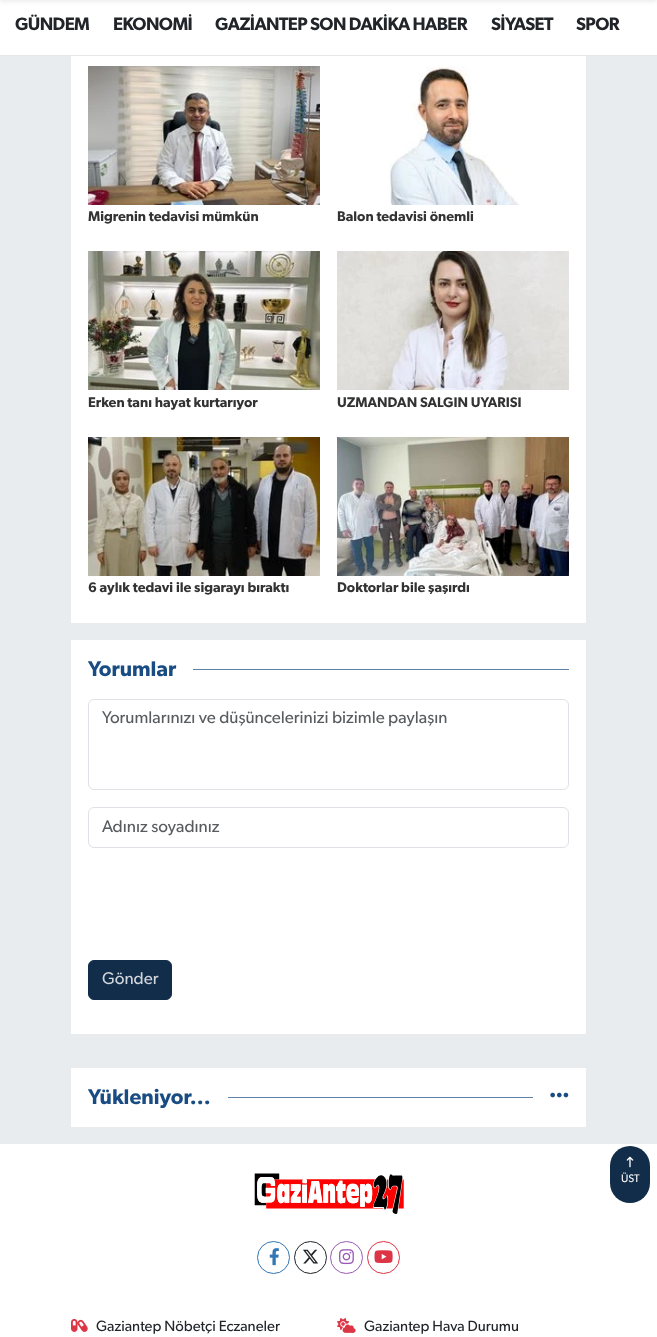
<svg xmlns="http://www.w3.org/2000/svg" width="657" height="1337">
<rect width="100%" height="100%" fill="#e9ecef"/>
<rect width="657" height="55" fill="#fff"/>
<rect y="-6" width="657" height="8" fill="#00000012" filter="blur(2px)"/>
<rect y="55" width="657" height="1" fill="#e6e6e6"/>
<text x="15" y="30" style="font-family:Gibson;font-size:18px;font-weight:600;letter-spacing:-0.6px;fill:#212529">GÜNDEM</text>
<text x="113" y="30" style="font-family:Gibson;font-size:18px;font-weight:600;letter-spacing:-0.6px;fill:#212529">EKONOMİ</text>
<text x="215" y="30" style="font-family:Gibson;font-size:18px;font-weight:600;letter-spacing:-0.6px;fill:#212529">GAZİANTEP SON DAKİKA HABER</text>
<text x="491" y="30" style="font-family:Gibson;font-size:18px;font-weight:600;letter-spacing:-0.6px;fill:#212529">SİYASET</text>
<text x="576" y="30" style="font-family:Gibson;font-size:18px;font-weight:600;letter-spacing:-0.6px;fill:#212529">SPOR</text>
<rect x="71" y="56" width="515" height="567" fill="#fff"/>
<image x="88" y="66" width="232" height="139" href="media/1.png"/>
<text x="88" y="221" style="font-family:Gibson;font-size:14px;font-weight:600;fill:#333">Migrenin tedavisi mümkün</text>
<image x="389" y="66" width="130" height="139" href="media/2.png"/>
<text x="337" y="221" style="font-family:Gibson;font-size:14px;font-weight:600;fill:#333">Balon tedavisi önemli</text>
<image x="88" y="251" width="232" height="139" href="media/3.png"/>
<text x="88" y="407" style="font-family:Gibson;font-size:14px;font-weight:600;fill:#333">Erken tanı hayat kurtarıyor</text>
<image x="337" y="251" width="232" height="139" href="media/4.png"/>
<text x="337" y="407" style="font-family:Gibson;font-size:14px;font-weight:600;fill:#333">UZMANDAN SALGIN UYARISI</text>
<image x="88" y="437" width="232" height="139" href="media/5.png"/>
<text x="88" y="592" style="font-family:Gibson;font-size:14px;font-weight:600;fill:#333">6 aylık tedavi ile sigarayı bıraktı</text>
<image x="337" y="437" width="232" height="139" href="media/6.png"/>
<text x="337" y="592" style="font-family:Gibson;font-size:14px;font-weight:600;fill:#333">Doktorlar bile şaşırdı</text>
<rect x="71" y="640" width="515" height="394" fill="#fff"/>
<text x="88" y="676" style="font-family:Gibson;font-size:21.25px;font-weight:600;fill:#194c82">Yorumlar</text>
<rect x="193" y="669" width="376" height="1" fill="#5e82a8"/>
<rect x="88.5" y="699.5" width="480" height="90" rx="5.5" fill="none" stroke="#dee2e6"/>
<text x="102" y="723" style="font-family:Gibson;font-size:17px;fill:#595c5f">Yorumlarınızı ve düşüncelerinizi bizimle paylaşın</text>
<rect x="88.5" y="807.5" width="480" height="40" rx="5.5" fill="none" stroke="#dee2e6"/>
<text x="102" y="832" style="font-family:Gibson;font-size:17px;fill:#595c5f">Adınız soyadınız</text>
<rect x="88.5" y="960.5" width="83" height="39" rx="5.5" fill="#122d4a" stroke="#122d4a"/>
<text x="102" y="984" style="font-family:Gibson;font-size:17px;fill:#d0d5db">Gönder</text>
<rect x="71" y="1068" width="515" height="59" fill="#fff"/>
<text x="88" y="1104" style="font-family:Gibson;font-size:21.25px;font-weight:600;fill:#194c82">Yükleniyor...</text>
<rect x="228" y="1097" width="305" height="1" fill="#5e82a8"/>
<image x="550" y="1092" width="19" height="6" href="media/7.png"/>
<rect y="1144" width="657" height="193" fill="#fff"/>
<rect x="610" y="1146" width="40" height="57" rx="20" fill="#122d4a"/>
<image x="626" y="1156" width="8" height="12" href="media/8.png"/>
<text x="621" y="1182" style="font-family:Gibson;font-size:11px;fill:#fff">ÜST</text>
<image x="254" y="1173" width="150" height="41" href="media/9.png"/>
<circle cx="273.5" cy="1257.5" r="16" fill="none" stroke="#3276b3"/>
<image x="269" y="1248" width="10" height="18" href="media/10.png"/>
<circle cx="310.5" cy="1257.5" r="16" fill="none" stroke="#212529"/>
<image x="303" y="1249" width="15" height="15" href="media/11.png"/>
<circle cx="346.5" cy="1257.5" r="16" fill="none" stroke="#9b59b6"/>
<image x="339" y="1249" width="15" height="16" href="media/12.png"/>
<circle cx="383.5" cy="1257.5" r="16" fill="none" stroke="#dc3545"/>
<image x="374" y="1250" width="19" height="13" href="media/13.png"/>
<image x="71" y="1318" width="17" height="14" href="media/14.png"/>
<text x="96" y="1331" style="font-family:Gibson;font-size:14.9px;fill:#212529">Gaziantep Nöbetçi Eczaneler</text>
<image x="337" y="1318" width="19" height="15" href="media/15.png"/>
<text x="364" y="1331" style="font-family:Gibson;font-size:14.9px;fill:#212529">Gaziantep Hava Durumu</text>
</svg>
